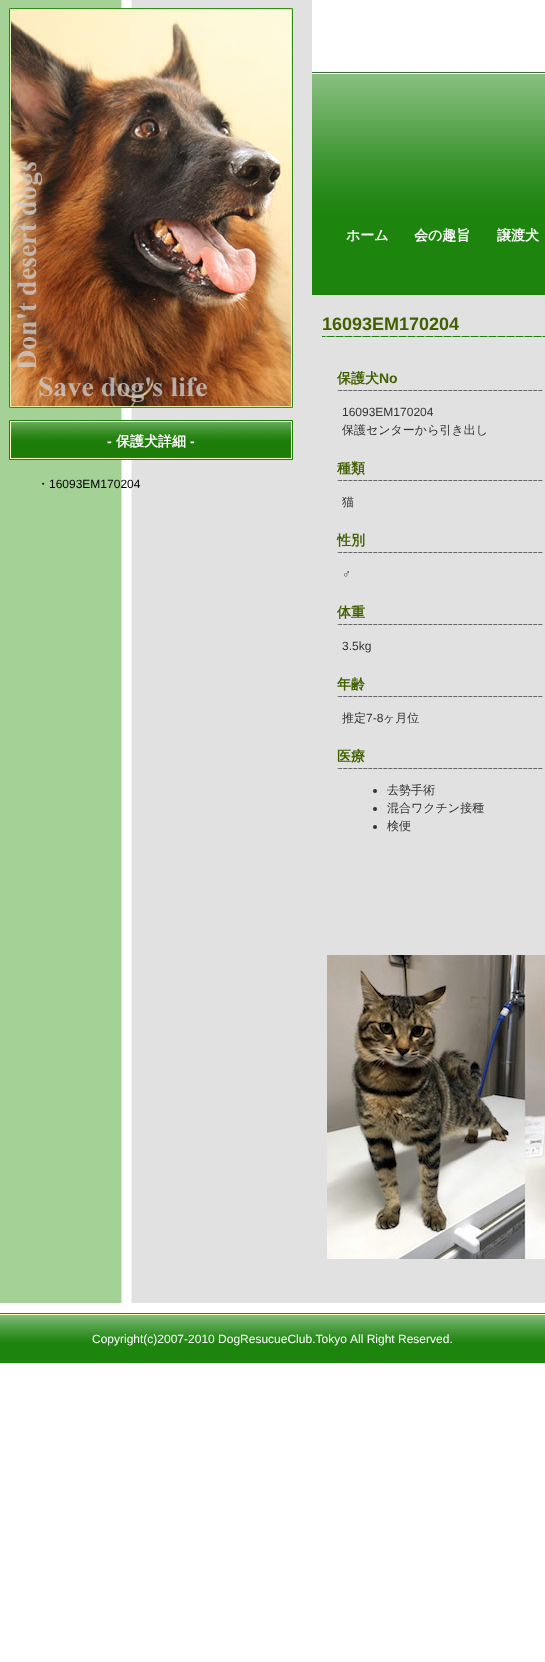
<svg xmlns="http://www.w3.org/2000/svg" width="545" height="1662">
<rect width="100%" height="100%" fill="#fff"/>
<image x="0" y="0" width="545" height="1303" href="media/1.png"/>
<image x="0" y="1313" width="545" height="50" href="media/2.png"/>
<image x="9" y="8" width="284" height="400" href="media/3.png"/>
<image x="9" y="420" width="284" height="40" href="media/4.png"/>
<text x="107" y="446" style="font-family:Liberation Sans;font-size:14px;font-weight:bold;fill:#fff">-</text>
<text x="116" y="446" style="font-family:WenQuanYi Zen Hei;font-size:14px;font-weight:bold;fill:#fff">保護犬詳細</text>
<text x="190" y="446" style="font-family:Liberation Sans;font-size:14px;font-weight:bold;fill:#fff">-</text>
<text x="37" y="488" style="font-family:WenQuanYi Zen Hei;font-size:12px;font-weight:500;fill:#000">・</text>
<text x="49" y="488" style="font-family:Liberation Sans;font-size:12px;fill:#000">16093EM170204</text>
<image x="312" y="0" width="233" height="295" href="media/5.png"/>
<text x="346" y="240" style="font-family:WenQuanYi Zen Hei;font-size:14px;font-weight:bold;fill:#fff">ホーム</text>
<text x="414" y="240" style="font-family:WenQuanYi Zen Hei;font-size:14px;font-weight:bold;fill:#fff">会の趣旨</text>
<text x="497" y="240" style="font-family:WenQuanYi Zen Hei;font-size:14px;font-weight:bold;fill:#fff">譲渡犬</text>
<image x="322" y="336" width="223" height="1" href="media/6.png"/>
<text x="322" y="330" style="font-family:Liberation Sans;font-size:18px;font-weight:bold;fill:#416001">16093EM170204</text>
<image x="337" y="390" width="206" height="1" href="media/7.png"/>
<text x="337" y="383" style="font-family:WenQuanYi Zen Hei;font-size:14px;font-weight:bold;fill:#416001">保護犬</text>
<text x="379" y="383" style="font-family:Liberation Sans;font-size:14px;font-weight:bold;fill:#416001">No</text>
<text x="342" y="416" style="font-family:Liberation Sans;font-size:12px;fill:#333">16093EM170204</text>
<text x="342" y="434" style="font-family:WenQuanYi Zen Hei;font-size:12px;font-weight:500;fill:#333">保護センターから引き出し</text>
<image x="337" y="480" width="206" height="1" href="media/7.png"/>
<text x="337" y="473" style="font-family:WenQuanYi Zen Hei;font-size:14px;font-weight:bold;fill:#416001">種類</text>
<text x="342" y="506" style="font-family:WenQuanYi Zen Hei;font-size:12px;font-weight:500;fill:#333">猫</text>
<image x="337" y="552" width="206" height="1" href="media/7.png"/>
<text x="337" y="545" style="font-family:WenQuanYi Zen Hei;font-size:14px;font-weight:bold;fill:#416001">性別</text>
<text x="342" y="578" style="font-family:Liberation Sans;font-size:12px;fill:#333">♂</text>
<image x="337" y="624" width="206" height="1" href="media/7.png"/>
<text x="337" y="617" style="font-family:WenQuanYi Zen Hei;font-size:14px;font-weight:bold;fill:#416001">体重</text>
<text x="342" y="650" style="font-family:Liberation Sans;font-size:12px;fill:#333">3.5kg</text>
<image x="337" y="696" width="206" height="1" href="media/7.png"/>
<text x="337" y="689" style="font-family:WenQuanYi Zen Hei;font-size:14px;font-weight:bold;fill:#416001">年齢</text>
<text x="342" y="722" style="font-family:WenQuanYi Zen Hei;font-size:12px;font-weight:500;fill:#333">推定</text>
<text x="366" y="722" style="font-family:Liberation Sans;font-size:12px;fill:#333">7-8</text>
<text x="383" y="722" style="font-family:WenQuanYi Zen Hei;font-size:12px;font-weight:500;fill:#333">ヶ月位</text>
<image x="337" y="768" width="206" height="1" href="media/7.png"/>
<text x="337" y="761" style="font-family:WenQuanYi Zen Hei;font-size:14px;font-weight:bold;fill:#416001">医療</text>
<circle cx="375" cy="791" r="2" fill="#333"/>
<text x="387" y="794" style="font-family:WenQuanYi Zen Hei;font-size:12px;font-weight:500;fill:#333">去勢手術</text>
<circle cx="375" cy="809" r="2" fill="#333"/>
<text x="387" y="812" style="font-family:WenQuanYi Zen Hei;font-size:12px;font-weight:500;fill:#333">混合ワクチン接種</text>
<circle cx="375" cy="827" r="2" fill="#333"/>
<text x="387" y="830" style="font-family:WenQuanYi Zen Hei;font-size:12px;font-weight:500;fill:#333">検便</text>
<image x="327" y="955" width="218" height="304" href="media/8.png"/>
<text x="92" y="1343" style="font-family:Liberation Sans;font-size:12px;fill:#fff">Copyright(c)2007-2010 DogResucueClub.Tokyo</text>
<text x="350" y="1343" style="font-family:Liberation Sans;font-size:12px;fill:#fff">All Right Reserved.</text>
</svg>
